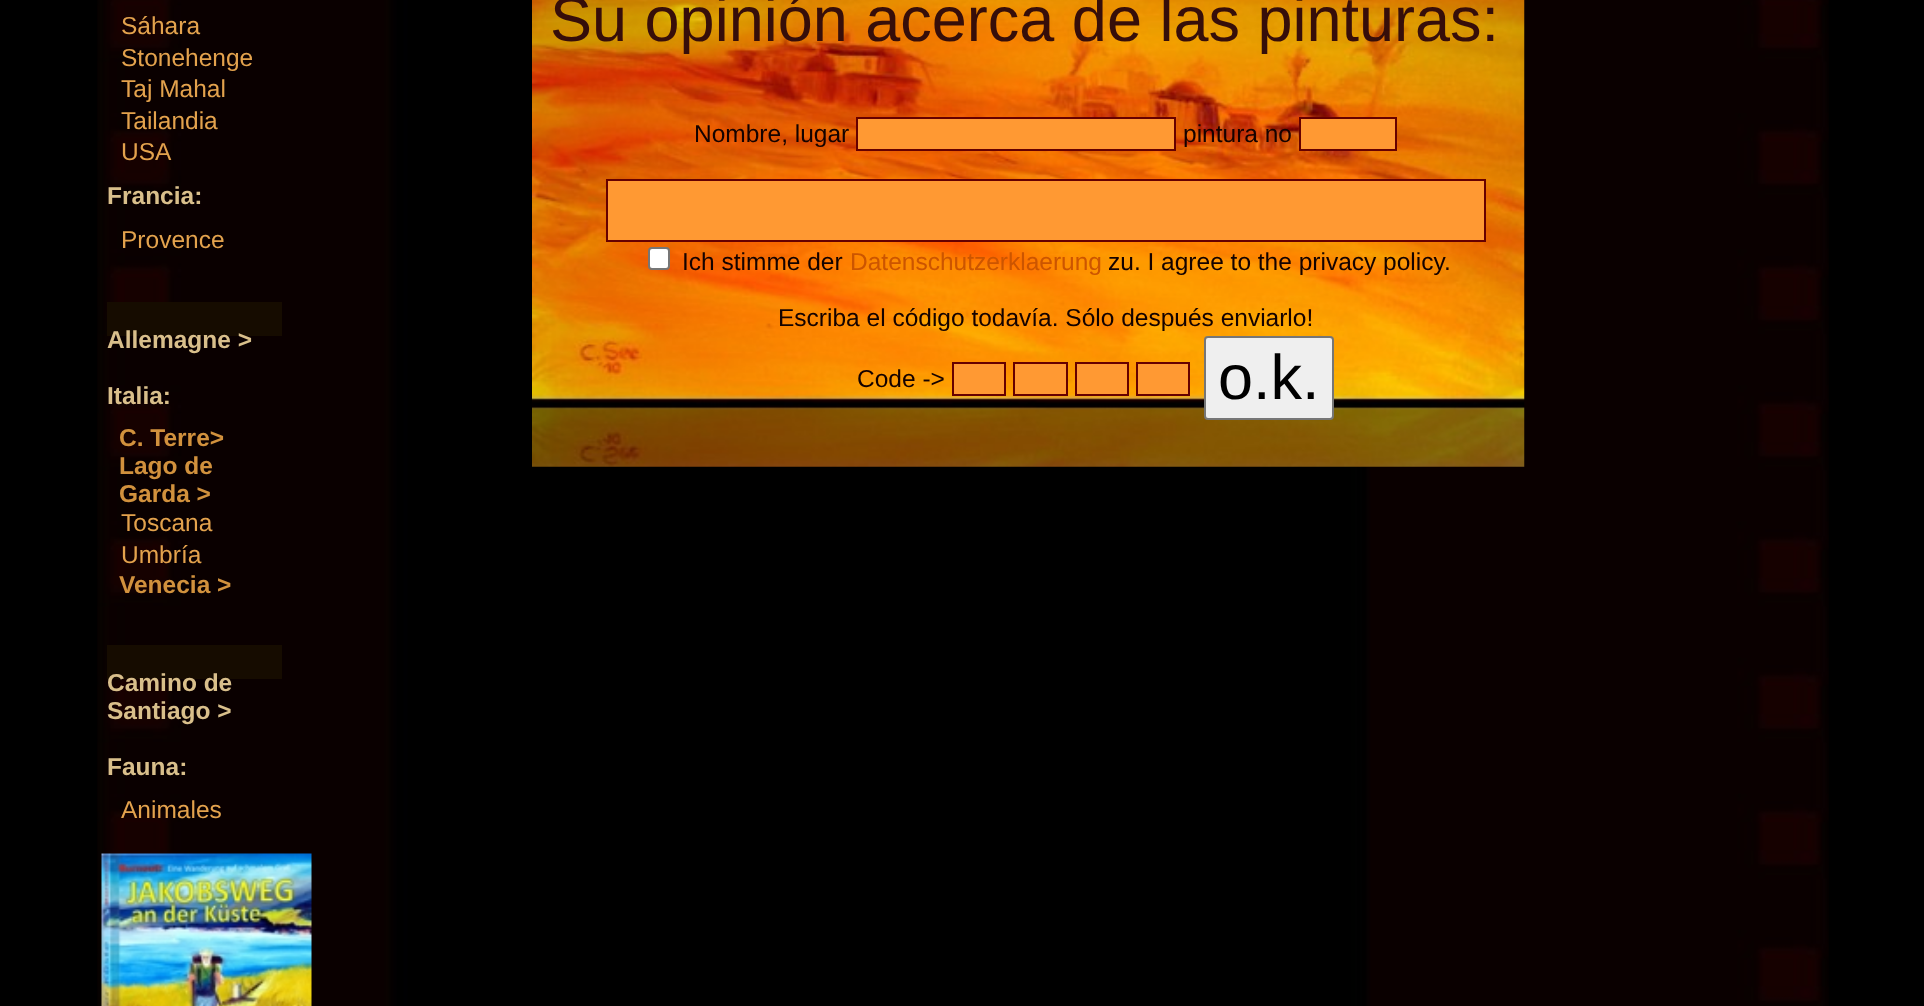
<svg xmlns="http://www.w3.org/2000/svg" width="1924" height="1006">
<rect width="100%" height="100%" fill="#000"/>
<image x="97" y="0" width="1732" height="1006" href="media/1.png"/>
<text x="121" y="34" style="font-family:Liberation Sans;font-size:24.5px;fill:#e3a24d">Sáhara</text>
<text x="121" y="66" style="font-family:Liberation Sans;font-size:24.5px;fill:#e3a24d">Stonehenge</text>
<text x="121" y="97" style="font-family:Liberation Sans;font-size:24.5px;fill:#e3a24d">Taj Mahal</text>
<text x="121" y="129" style="font-family:Liberation Sans;font-size:24.5px;fill:#e3a24d">Tailandia</text>
<text x="121" y="160" style="font-family:Liberation Sans;font-size:24.5px;fill:#e3a24d">USA</text>
<text x="107" y="204" style="font-family:Liberation Sans;font-size:24.5px;font-weight:bold;fill:#d9bf8b">Francia:</text>
<text x="121" y="248" style="font-family:Liberation Sans;font-size:24.5px;fill:#e3a24d">Provence</text>
<rect x="107" y="302" width="175" height="34" fill="#160c00"/>
<text x="107" y="348" style="font-family:Liberation Sans;font-size:24.5px;font-weight:bold;fill:#d9bf8b">Allemagne &gt;</text>
<text x="107" y="404" style="font-family:Liberation Sans;font-size:24.5px;font-weight:bold;fill:#d9bf8b">Italia:</text>
<text x="119" y="446" style="font-family:Liberation Sans;font-size:24.5px;font-weight:bold;fill:#d1913d">C. Terre&gt;</text>
<text x="119" y="474" style="font-family:Liberation Sans;font-size:24.5px;font-weight:bold;fill:#d1913d">Lago de</text>
<text x="119" y="502" style="font-family:Liberation Sans;font-size:24.5px;font-weight:bold;fill:#d1913d">Garda &gt;</text>
<text x="121" y="531" style="font-family:Liberation Sans;font-size:24.5px;fill:#e3a24d">Toscana</text>
<text x="121" y="563" style="font-family:Liberation Sans;font-size:24.5px;fill:#e3a24d">Umbría</text>
<text x="119" y="593" style="font-family:Liberation Sans;font-size:24.5px;font-weight:bold;fill:#d1913d">Venecia &gt;</text>
<rect x="107" y="645" width="175" height="34" fill="#160c00"/>
<text x="107" y="691" style="font-family:Liberation Sans;font-size:24.5px;font-weight:bold;fill:#d9bf8b">Camino de</text>
<text x="107" y="719" style="font-family:Liberation Sans;font-size:24.5px;font-weight:bold;fill:#d9bf8b">Santiago &gt;</text>
<text x="107" y="775" style="font-family:Liberation Sans;font-size:24.5px;font-weight:bold;fill:#d9bf8b">Fauna:</text>
<text x="121" y="818" style="font-family:Liberation Sans;font-size:24.5px;fill:#e3a24d">Animales</text>
<image x="101" y="853" width="211" height="153" href="media/2.png"/>
<image x="532" y="0" width="993" height="467" href="media/3.png"/>
<text x="550" y="41" style="font-family:Liberation Sans;font-size:63px;fill:#360e0a">Su opinión acerca de las pinturas:</text>
<text x="694" y="142" style="font-family:Liberation Sans;font-size:24.5px;fill:#140200">Nombre, lugar</text>
<rect x="857" y="118" width="318" height="32" fill="#f93" stroke="#600" stroke-width="2"/>
<text x="1183" y="142" style="font-family:Liberation Sans;font-size:24.5px;fill:#140200">pintura no</text>
<rect x="1300" y="118" width="96" height="32" fill="#f93" stroke="#600" stroke-width="2"/>
<rect x="607" y="180" width="878" height="61" fill="#f93" stroke="#600" stroke-width="2"/>
<rect x="649" y="248" width="20" height="21" rx="3" fill="#fff" stroke="#767676" stroke-width="2"/>
<text x="682" y="270" style="font-family:Liberation Sans;font-size:24.5px;fill:#140200">Ich stimme der</text>
<text x="850" y="270" style="font-family:Liberation Sans;font-size:24.5px;fill:#c50">Datenschutzerklaerung</text>
<text x="1108" y="270" style="font-family:Liberation Sans;font-size:24.5px;fill:#140200">zu. I agree to the privacy policy.</text>
<text x="778" y="326" style="font-family:Liberation Sans;font-size:24.5px;fill:#140200">Escriba el código todavía. Sólo después enviarlo!</text>
<text x="857" y="387" style="font-family:Liberation Sans;font-size:24.5px;fill:#140200">Code -&gt;</text>
<rect x="953" y="363" width="52" height="32" fill="#f93" stroke="#600" stroke-width="2"/>
<rect x="1014" y="363" width="53" height="32" fill="#f93" stroke="#600" stroke-width="2"/>
<rect x="1076" y="363" width="52" height="32" fill="#f93" stroke="#600" stroke-width="2"/>
<rect x="1137" y="363" width="52" height="32" fill="#f93" stroke="#600" stroke-width="2"/>
<rect x="1205" y="337" width="128" height="82" rx="3" fill="#efefef" stroke="#767676" stroke-width="2"/>
<text x="1218" y="399" style="font-family:Liberation Sans;font-size:63px;fill:#000">o.k.</text>
</svg>
